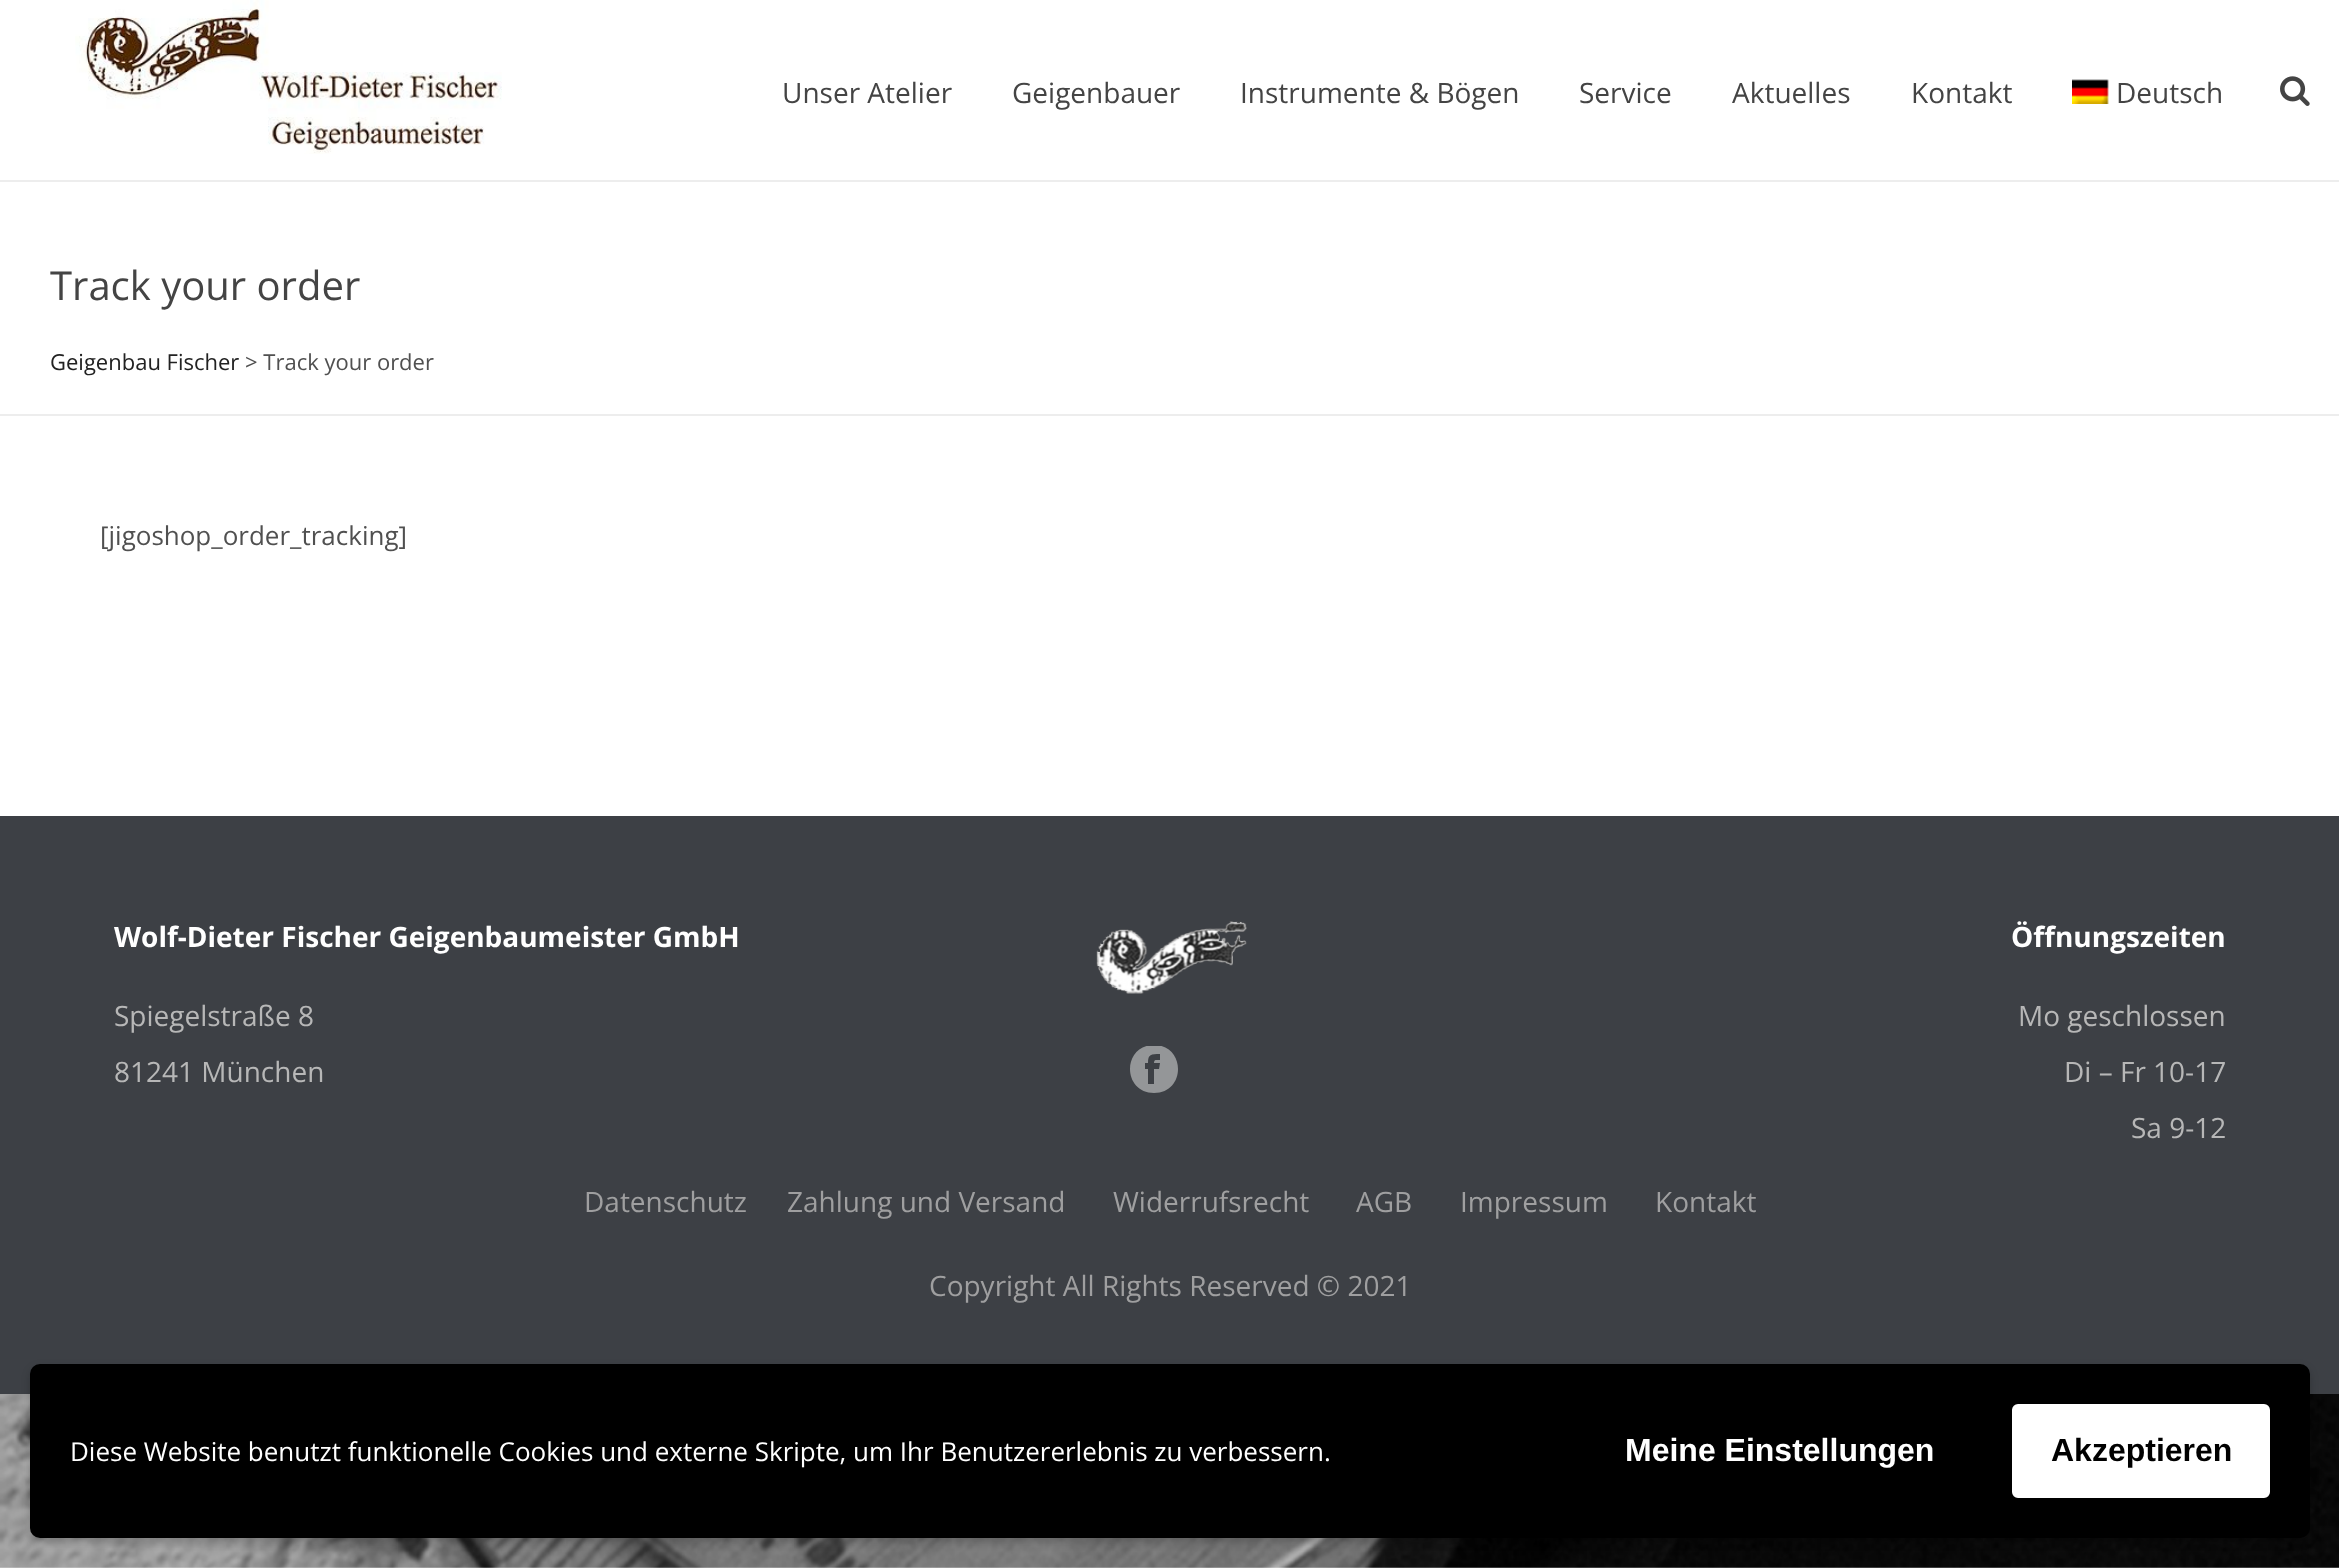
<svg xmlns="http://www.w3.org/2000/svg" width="2339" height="1568">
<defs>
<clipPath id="clip1"><rect x="1130" y="1046" width="48" height="48"/></clipPath>
</defs>
<rect width="100%" height="100%" fill="#fff"/>
<image x="0" y="1394" width="2339" height="174" href="media/1.png"/>
<rect y="414" width="2339" height="2" fill="#ededed"/>
<rect y="180" width="2339" height="2" fill="#ededed"/>
<image x="75" y="0" width="427" height="154" href="media/2.png"/>
<text x="782" y="103" style="font-family:Open Sans;font-size:28px;fill:#444">Unser Atelier</text>
<text x="1012" y="103" style="font-family:Open Sans;font-size:28px;fill:#444">Geigenbauer</text>
<text x="1240" y="103" style="font-family:Open Sans;font-size:28px;fill:#444">Instrumente &amp; Bögen</text>
<text x="1579" y="103" style="font-family:Open Sans;font-size:28px;fill:#444">Service</text>
<text x="1732" y="103" style="font-family:Open Sans;font-size:28px;fill:#444">Aktuelles</text>
<text x="1911" y="103" style="font-family:Open Sans;font-size:28px;fill:#444">Kontakt</text>
<image x="2072" y="79" width="37" height="25" href="media/3.png"/>
<text x="2116" y="103" style="font-family:Open Sans;font-size:28px;fill:#444">Deutsch</text>
<image x="2280" y="76" width="30" height="30" href="media/4.png"/>
<text x="50" y="300" style="font-family:Open Sans;font-size:40px;fill:#444">Track your order</text>
<text x="50" y="370" style="font-family:Open Sans;font-size:22px;fill:#222">Geigenbau Fischer</text>
<text x="245" y="370" style="font-family:Open Sans;font-size:22px;fill:#505050">&gt; Track your order</text>
<text x="100" y="545" style="font-family:Open Sans;font-size:26px;fill:#505050">[jigoshop_order_tracking]</text>
<rect y="816" width="2339" height="578" fill="#3d4045"/>
<text x="114" y="947" style="font-family:Open Sans;font-size:28px;font-weight:bold;fill:#fff">Wolf-Dieter Fischer Geigenbaumeister GmbH</text>
<text x="114" y="1026" style="font-family:Open Sans;font-size:28px;fill:#b7b7b7">Spiegelstraße 8</text>
<text x="114" y="1082" style="font-family:Open Sans;font-size:28px;fill:#b7b7b7">81241 München</text>
<image x="1096" y="921" width="151" height="73" href="media/5.png"/>
<g clip-path="url(#clip1)">
<path d="M1154 1045c-32 0-32 48 0 48c32 0 32-48 0-48zm6 15c-4 0-6-1-6 3h6l-1 6h-5v15h-6v-15h-3v-6h3c0-9 3-9 12-9z" fill="#949698"/>
</g>
<text x="2011" y="947" style="font-family:Open Sans;font-size:28px;font-weight:bold;fill:#fff">Öffnungszeiten</text>
<text x="2018" y="1026" style="font-family:Open Sans;font-size:28px;fill:#b7b7b7">Mo geschlossen</text>
<text x="2064" y="1082" style="font-family:Open Sans;font-size:28px;fill:#b7b7b7">Di – Fr 10-17</text>
<text x="2131" y="1138" style="font-family:Open Sans;font-size:28px;fill:#b7b7b7">Sa 9-12</text>
<text x="584" y="1212" style="font-family:Open Sans;font-size:28px;fill:#9f9fa0">Datenschutz</text>
<text x="787" y="1212" style="font-family:Open Sans;font-size:28px;fill:#9f9fa0">Zahlung und Versand</text>
<text x="1113" y="1212" style="font-family:Open Sans;font-size:28px;fill:#9f9fa0">Widerrufsrecht</text>
<text x="1356" y="1212" style="font-family:Open Sans;font-size:28px;fill:#9f9fa0">AGB</text>
<text x="1460" y="1212" style="font-family:Open Sans;font-size:28px;fill:#9f9fa0">Impressum</text>
<text x="1655" y="1212" style="font-family:Open Sans;font-size:28px;fill:#9f9fa0">Kontakt</text>
<text x="929" y="1296" style="font-family:Open Sans;font-size:28px;fill:#9f9fa0">Copyright All Rights Reserved © 2021</text>
<rect x="30" y="1368" width="2280" height="174" rx="10" fill="#00000033" filter="blur(4px)"/>
<rect x="30" y="1364" width="2280" height="174" rx="10" fill="#000"/>
<text x="70" y="1461" style="font-family:Open Sans;font-size:26px;fill:#fff">Diese Website benutzt funktionelle Cookies und externe Skripte, um Ihr Benutzererlebnis zu verbessern.</text>
<text x="1625" y="1461" style="font-family:Liberation Sans;font-size:32px;font-weight:bold;fill:#fff">Meine Einstellungen</text>
<rect x="2013" y="1405" width="256" height="92" rx="5" fill="#fff" stroke="#fff" stroke-width="2"/>
<text x="2051" y="1461" style="font-family:Liberation Sans;font-size:32px;font-weight:bold;fill:#000">Akzeptieren</text>
</svg>
